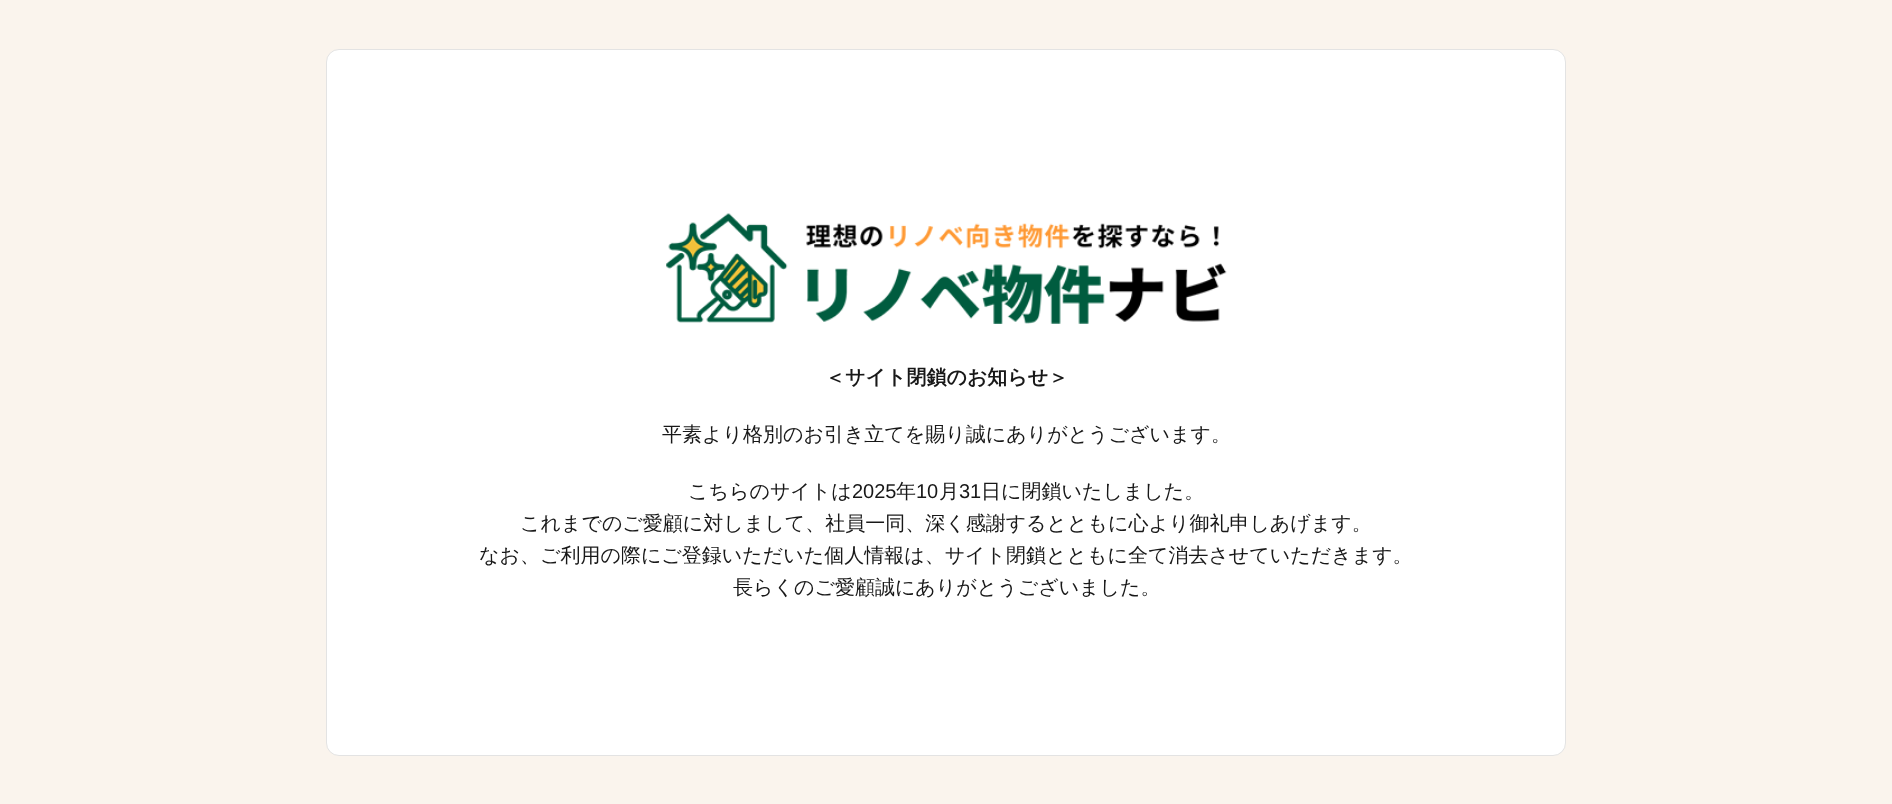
<svg xmlns="http://www.w3.org/2000/svg" width="1892" height="804">
<rect width="100%" height="100%" fill="#faf4ed"/>
<rect x="326.5" y="49.5" width="1239" height="706" rx="12.5" fill="#fff" stroke="#e3e3e3"/>
<image x="666" y="213" width="561" height="111" href="media/1.png"/>
<text x="825" y="384" style="font-family:WenQuanYi Zen Hei;font-size:20px;font-weight:bold;fill:#181818">＜サイト閉鎖のお知らせ＞</text>
<text x="662" y="441" style="font-family:WenQuanYi Zen Hei;font-size:20px;font-weight:500;fill:#181818">平素より格別のお引き立てを賜り誠にありがとうございます。</text>
<text x="688" y="498" style="font-family:WenQuanYi Zen Hei;font-size:20px;font-weight:500;fill:#181818">こちらのサイトは</text>
<text x="852" y="498" style="font-family:Liberation Sans;font-size:20px;fill:#181818">2025</text>
<text x="896" y="498" style="font-family:WenQuanYi Zen Hei;font-size:20px;font-weight:500;fill:#181818">年</text>
<text x="916" y="498" style="font-family:Liberation Sans;font-size:20px;fill:#181818">10</text>
<text x="939" y="498" style="font-family:WenQuanYi Zen Hei;font-size:20px;font-weight:500;fill:#181818">月</text>
<text x="959" y="498" style="font-family:Liberation Sans;font-size:20px;fill:#181818">31</text>
<text x="981" y="498" style="font-family:WenQuanYi Zen Hei;font-size:20px;font-weight:500;fill:#181818">日に閉鎖いたしました。</text>
<text x="520" y="530" style="font-family:WenQuanYi Zen Hei;font-size:20px;font-weight:500;fill:#181818">これまでのご愛顧に対しまして、社員一同、深く感謝するとともに心より御礼申しあげます。</text>
<text x="479" y="562" style="font-family:WenQuanYi Zen Hei;font-size:20px;font-weight:500;fill:#181818">なお、ご利用の際にご登録いただいた個人情報は、サイト閉鎖とともに全て消去させていただきます。</text>
<text x="733" y="594" style="font-family:WenQuanYi Zen Hei;font-size:20px;font-weight:500;fill:#181818">長らくのご愛顧誠にありがとうございました。</text>
</svg>
